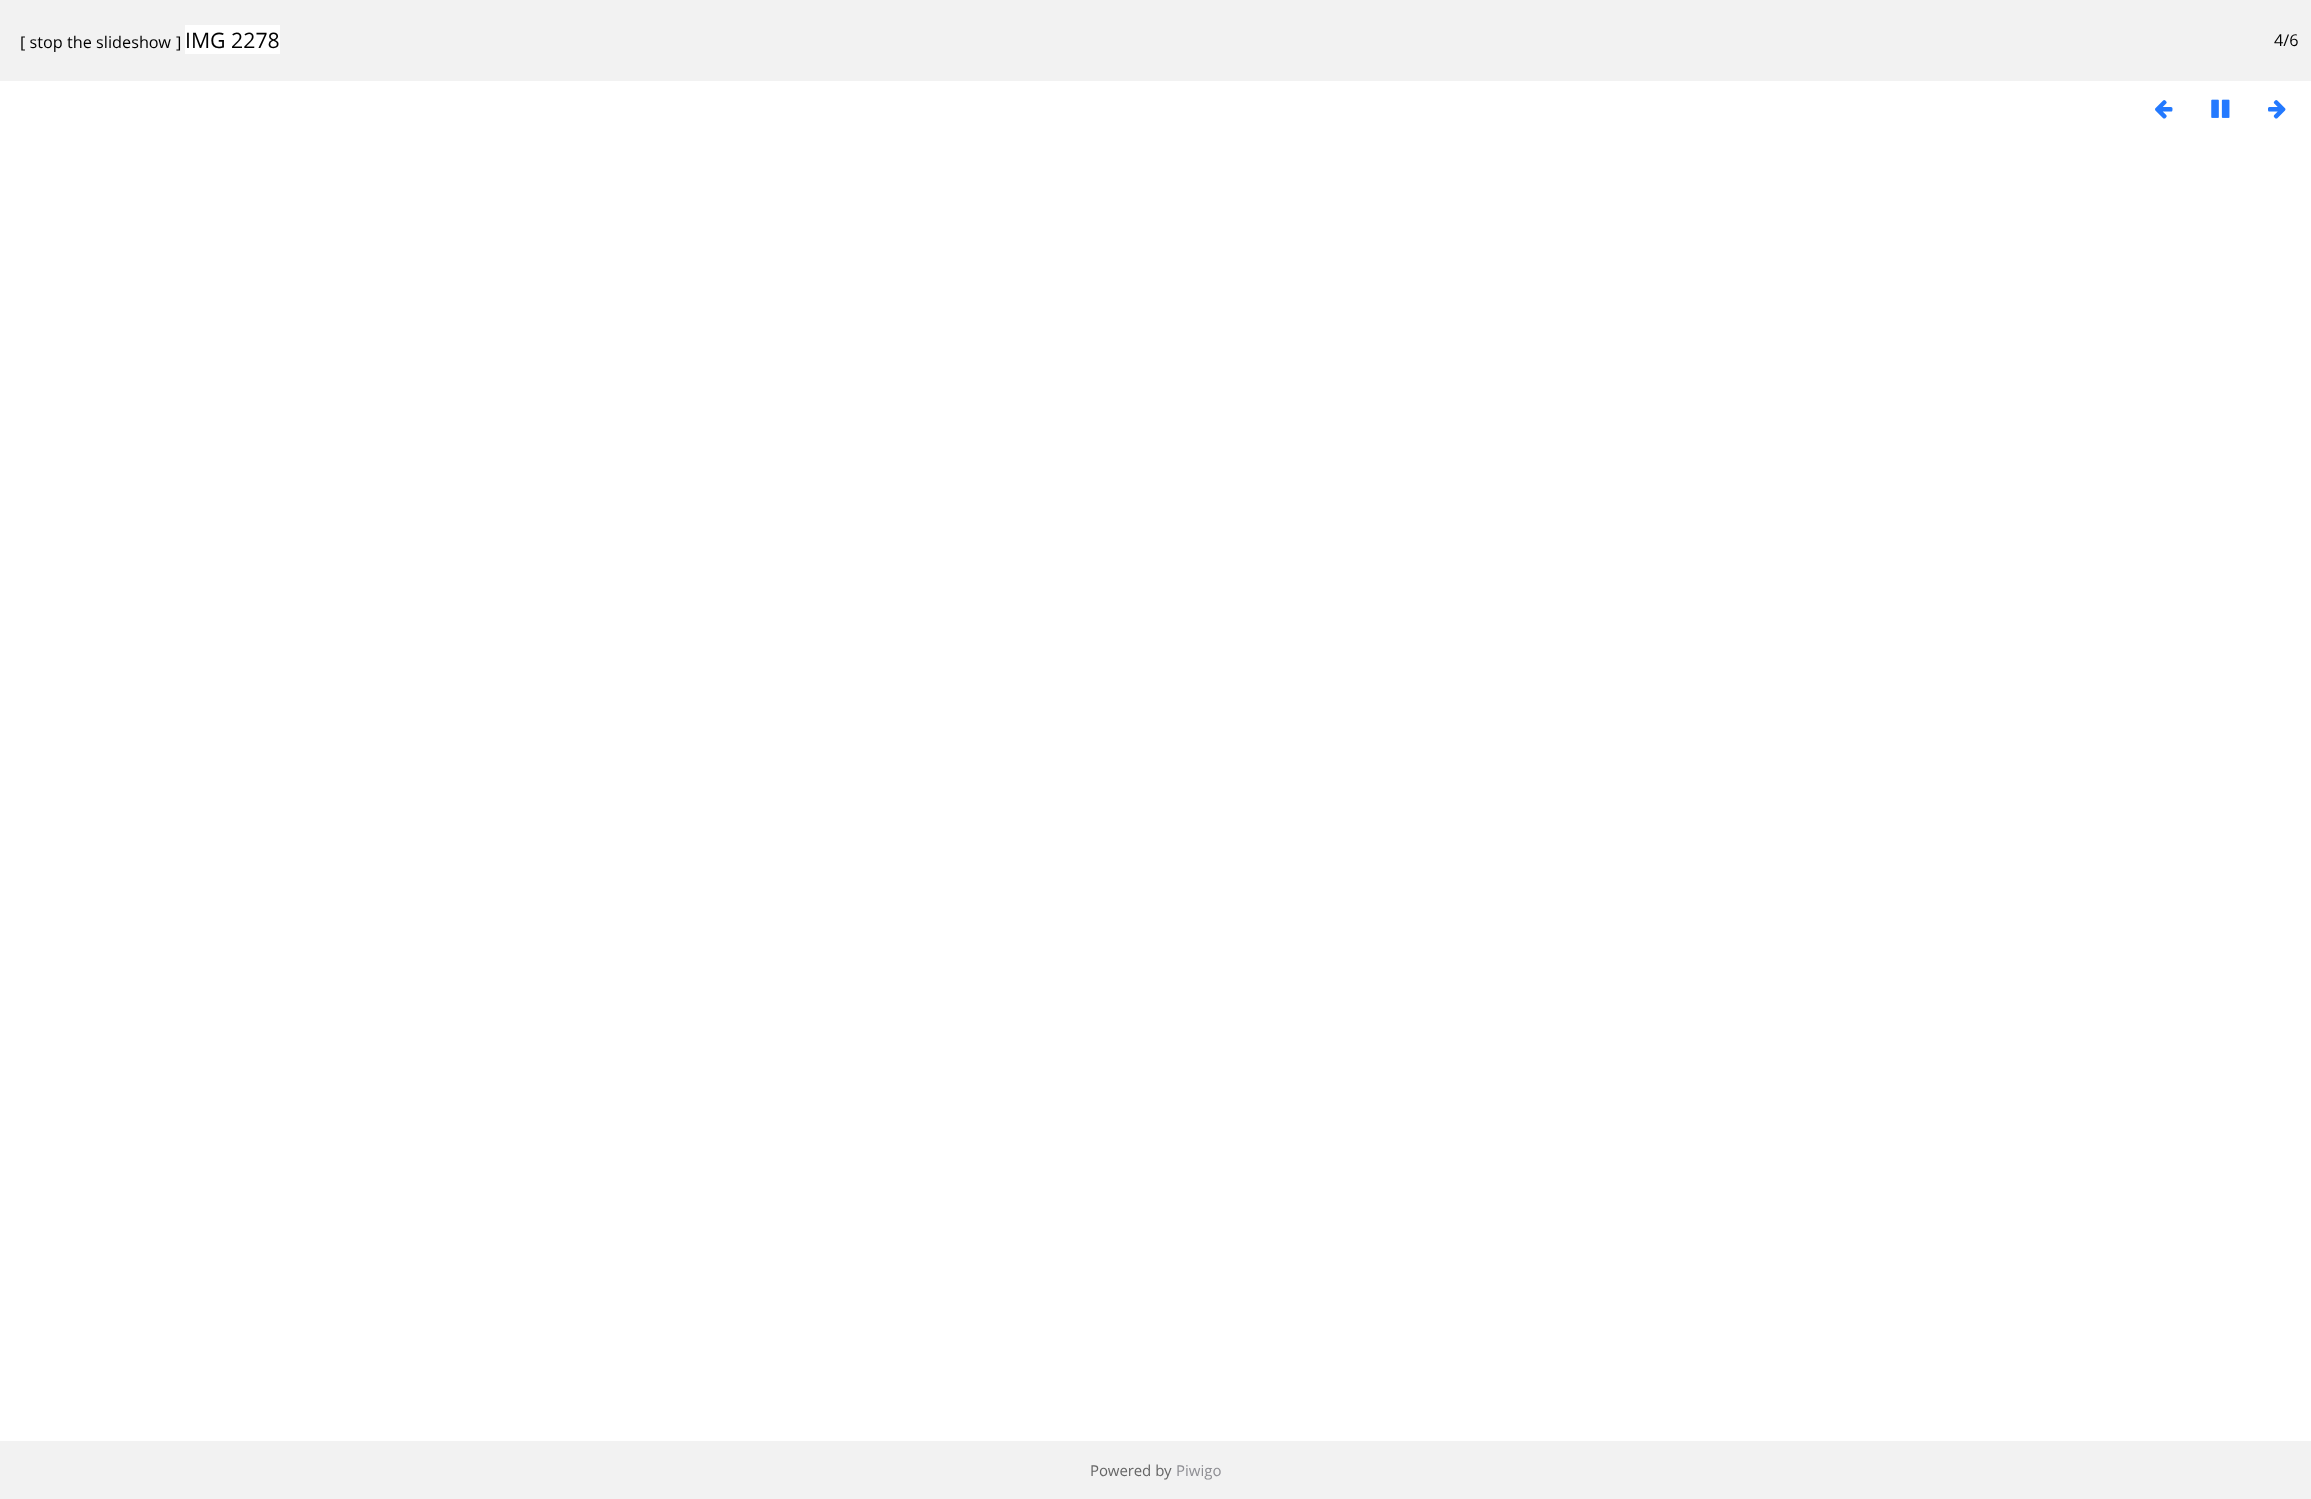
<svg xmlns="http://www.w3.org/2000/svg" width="2311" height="1499">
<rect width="100%" height="100%" fill="#fff"/>
<rect width="2311" height="81" fill="#f2f2f2"/>
<text x="20" y="48" style="font-family:Open Sans;font-size:16.25px;fill:#000">[ stop the slideshow</text>
<text x="176" y="48" style="font-family:Open Sans;font-size:16.25px;fill:#000">]</text>
<rect x="185" y="25" width="95" height="29" fill="#fff"/>
<text x="185" y="48" style="font-family:Open Sans;font-size:21.25px;fill:#000">IMG 2278</text>
<text x="2274" y="46" style="font-family:Open Sans;font-size:16.25px;fill:#000">4/6</text>
<text x="2155" y="116" style="font-family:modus;font-size:21.25px;fill:#2379ff">←</text>
<image x="2211" y="99" width="19" height="19" href="media/1.png"/>
<text x="2268" y="116" style="font-family:modus;font-size:21.25px;fill:#2379ff">→</text>
<rect y="1441" width="2311" height="58" fill="#f2f2f2"/>
<text x="1090" y="1476" style="font-family:Open Sans;font-size:15px;fill:#666">Powered by</text>
<text x="1176" y="1476" style="font-family:Open Sans;font-size:15px;fill:#8e8e93">Piwigo</text>
</svg>
